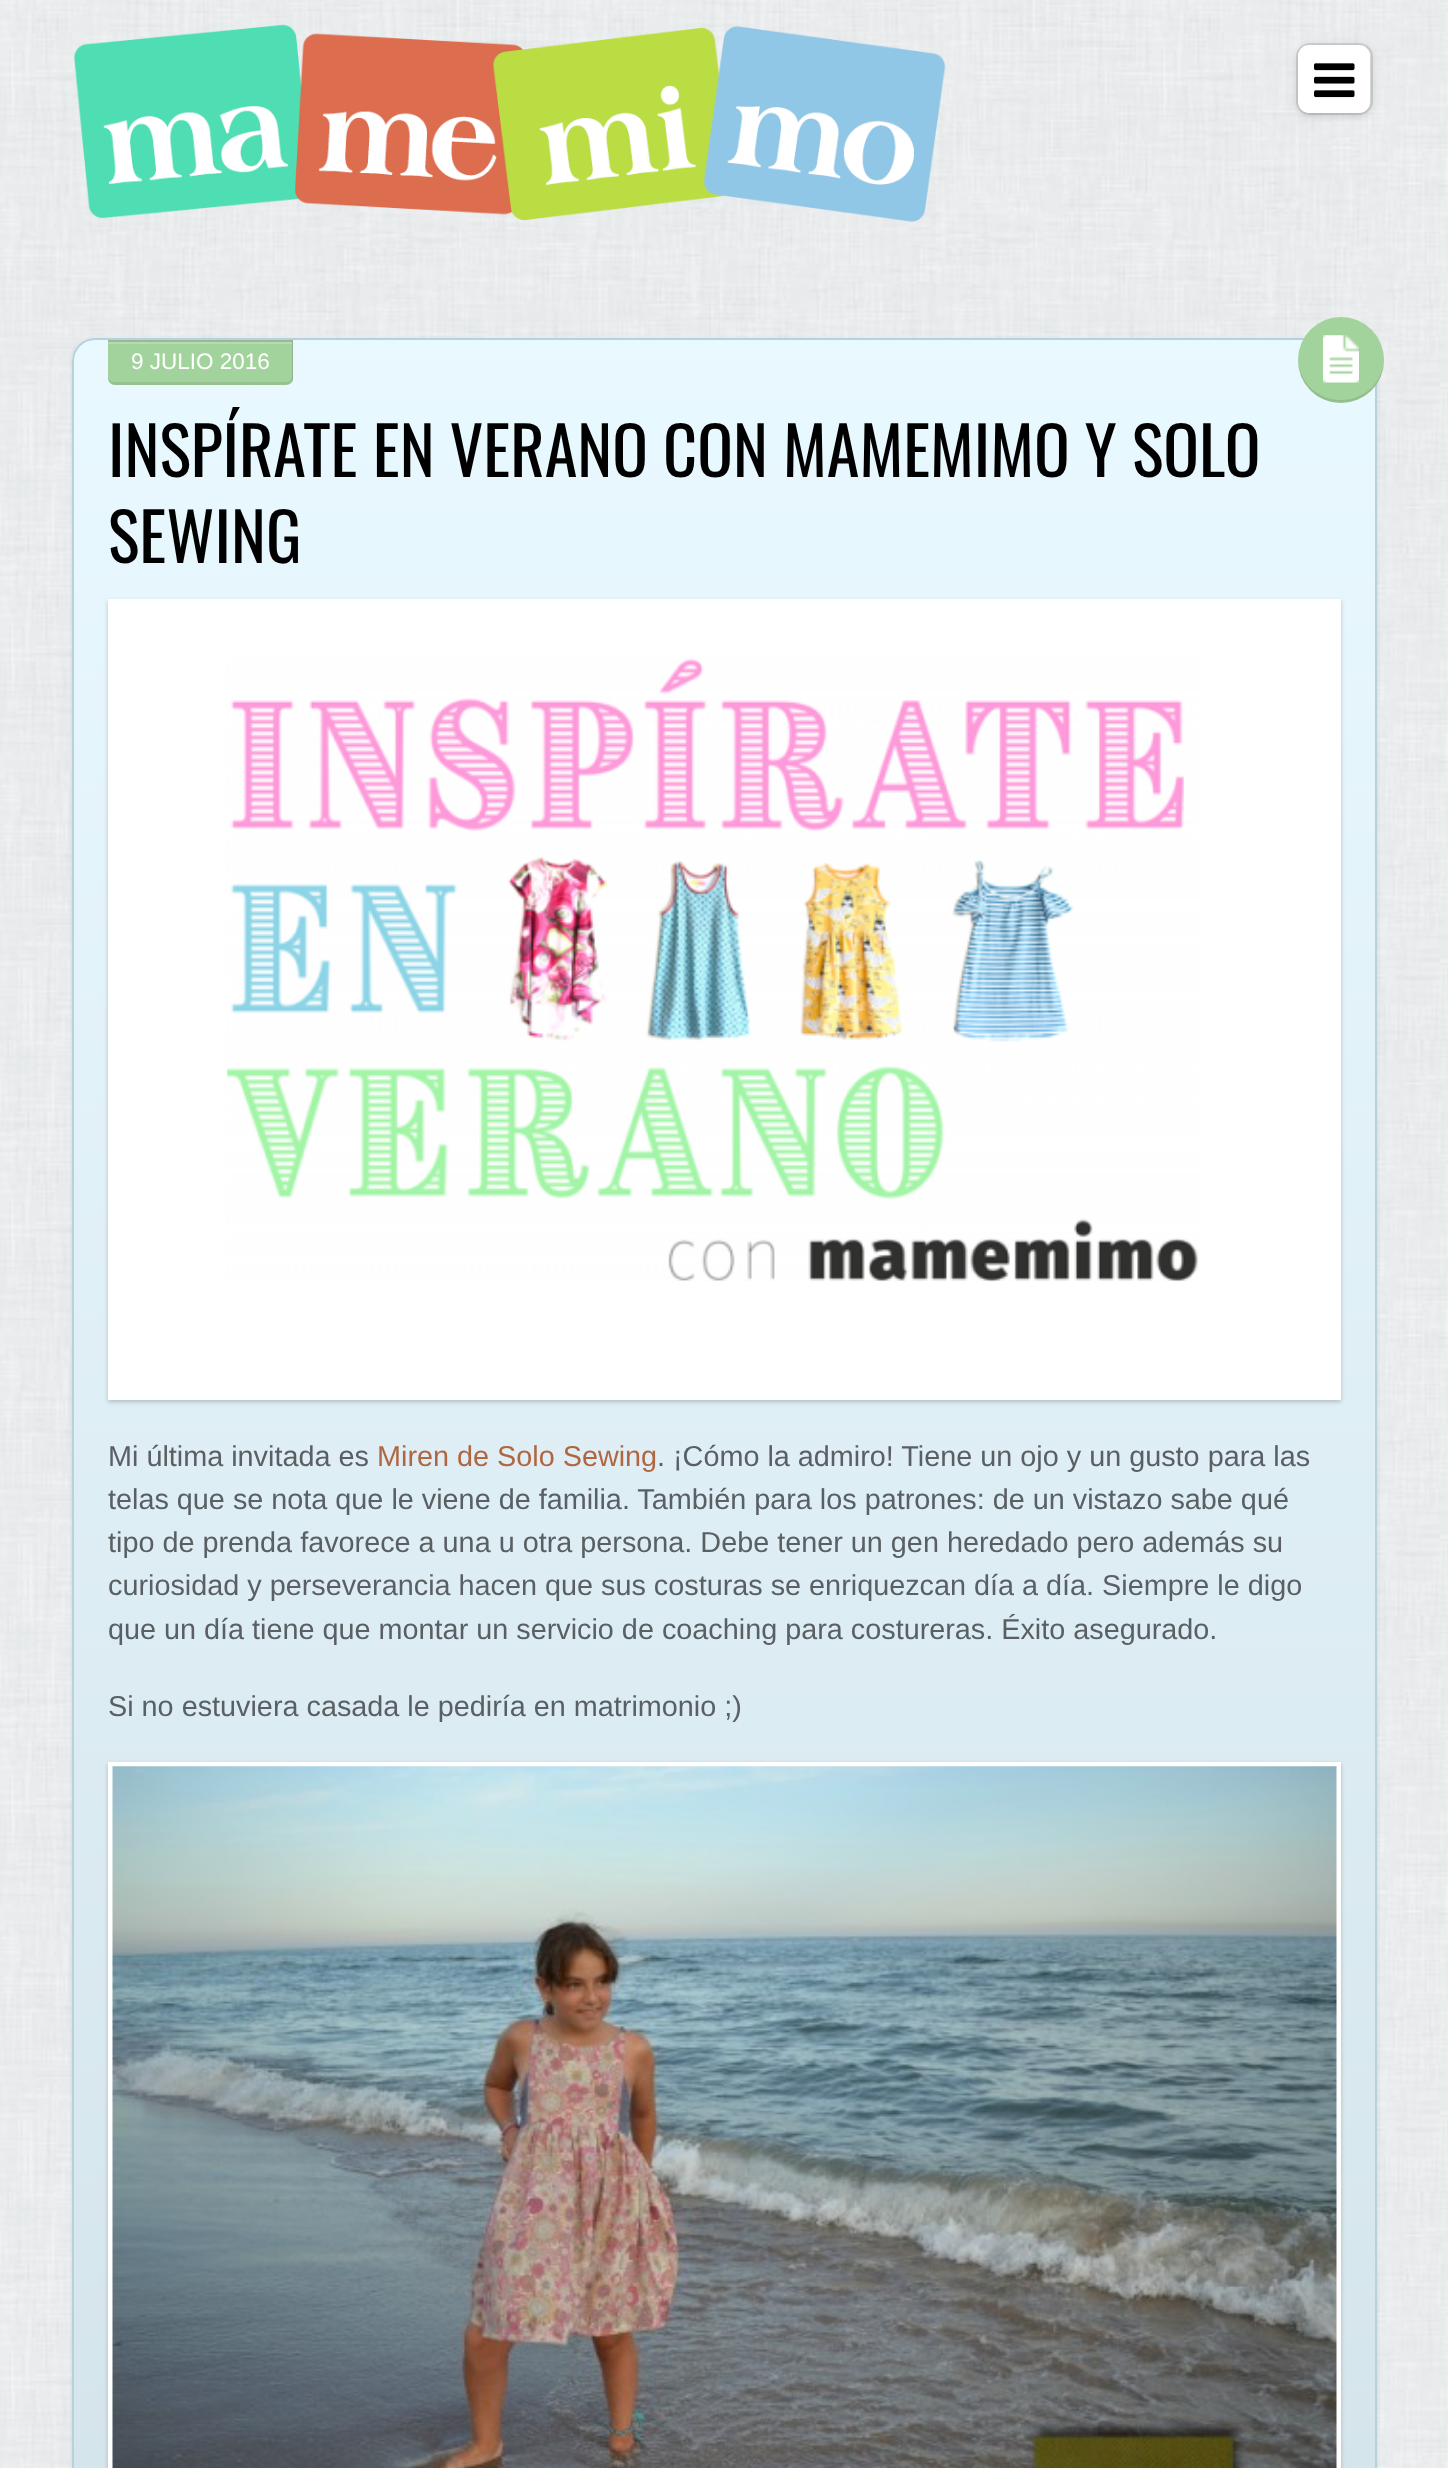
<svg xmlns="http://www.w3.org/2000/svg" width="1448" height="2468">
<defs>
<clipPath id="clip1"><rect x="72" y="338" width="1305" height="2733" rx="23"/></clipPath>
<linearGradient id="g1" gradientUnits="userSpaceOnUse" x1="724" y1="340" x2="725" y2="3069"><stop offset="0" stop-color="#fff" stop-opacity="0.1"/><stop offset="1" stop-color="#000" stop-opacity="0.1"/></linearGradient>
</defs>
<rect width="100%" height="100%" fill="#dadee0"/>
<image x="0" y="0" width="1448" height="2468" href="media/1.png"/>
<image x="73" y="24" width="873" height="198" href="media/2.png"/>
<rect x="1298" y="47" width="72" height="68" rx="11" fill="#00000033" filter="blur(4.5px)"/>
<rect x="1297" y="44" width="75" height="70" rx="13" fill="none" stroke="#0000001a" stroke-width="2"/>
<rect x="1298" y="45" width="72" height="68" rx="11" fill="#fff"/>
<image x="1314" y="63" width="41" height="35" href="media/3.png"/>
<rect x="72" y="340" width="1305" height="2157" rx="23" fill="#0000001a" filter="blur(2px)"/>
<rect x="72" y="338" width="1305" height="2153" rx="23" fill="#e6f8ff"/>
<g clip-path="url(#clip1)">
<rect x="72" y="340" width="1303" height="2128" fill="url(#g1)"/>
</g>
<rect x="73" y="339" width="1303" height="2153" rx="22" fill="none" stroke="#b7d2dd" stroke-width="2"/>
<path d="M108 340h185v38c0 4-3 7-7 7h-171c-4 0-7-3-7-7z" fill="#a3d39c"/>
<path d="M108 376v2c0 4 3 7 7 7h171c4 0 7-3 7-7v-38h-1v36c0 3-3 6-6 6h-171c-4 0-7-3-7-6z" fill="#00000014"/>
<path d="M108 342h184v40c1-1 1-3 1-4v-38h-185z" fill="#00000033"/>
<path d="M108 344h184v38c1-1 1-3 1-4v-38h-185z" fill="#ffffff33"/>
<text x="131" y="369" style="font-family:Liberation Sans;font-size:22.5px;fill:#fff">9 JULIO 2016</text>
<circle cx="1341" cy="360" r="43" fill="#a3d39c"/>
<image x="1323" y="335" width="36" height="48" href="media/4.png"/>
<path d="M1298 359c0 9 2 18 7 25c24 35 80 18 79-25c-1 23-19 41-43 41c-24 0-42-18-43-41z" fill="#0000001a"/>
<text x="108" y="477" style="font-family:Oswald;font-size:66.25px;fill:#000">INSPÍRATE EN VERANO CON MAMEMIMO Y SOLO</text>
<text x="108" y="563" style="font-family:Oswald;font-size:66.25px;fill:#000">SEWING</text>
<rect x="108" y="601" width="1233" height="801" fill="#00000033" filter="blur(2px)"/>
<rect x="108" y="599" width="1233" height="801" fill="#fff"/>
<image x="226" y="658" width="973" height="624" href="media/5.png"/>
<text x="108" y="1466" style="font-family:Liberation Sans;font-size:28.8px;fill:#595f62">Mi última invitada es</text>
<text x="377" y="1466" style="font-family:Liberation Sans;font-size:28.8px;fill:#b16642">Miren de Solo Sewing</text>
<text x="657" y="1466" style="font-family:Liberation Sans;font-size:28.8px;fill:#595f62">. ¡Cómo la admiro! Tiene un ojo y un gusto para las</text>
<text x="108" y="1509" style="font-family:Liberation Sans;font-size:28.8px;fill:#595f62">telas que se nota que le viene de familia. También para los patrones: de un vistazo sabe qué</text>
<text x="108" y="1552" style="font-family:Liberation Sans;font-size:28.8px;fill:#595f62">tipo de prenda favorece a una u otra persona. Debe tener un gen heredado pero además su</text>
<text x="108" y="1595" style="font-family:Liberation Sans;font-size:28.8px;fill:#595f62">curiosidad y perseverancia hacen que sus costuras se enriquezcan día a día. Siempre le digo</text>
<text x="108" y="1639" style="font-family:Liberation Sans;font-size:28.8px;fill:#595f62">que un día tiene que montar un servicio de coaching para costureras. Éxito asegurado.</text>
<text x="108" y="1716" style="font-family:Liberation Sans;font-size:28.8px;fill:#595f62">Si no estuviera casada le pediría en matrimonio ;)</text>
<rect x="108" y="1764" width="1233" height="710" fill="#00000033" filter="blur(2px)"/>
<rect x="108" y="1762" width="1233" height="706" fill="#fff"/>
<image x="112" y="1766" width="1225" height="702" href="media/6.png"/>
</svg>
